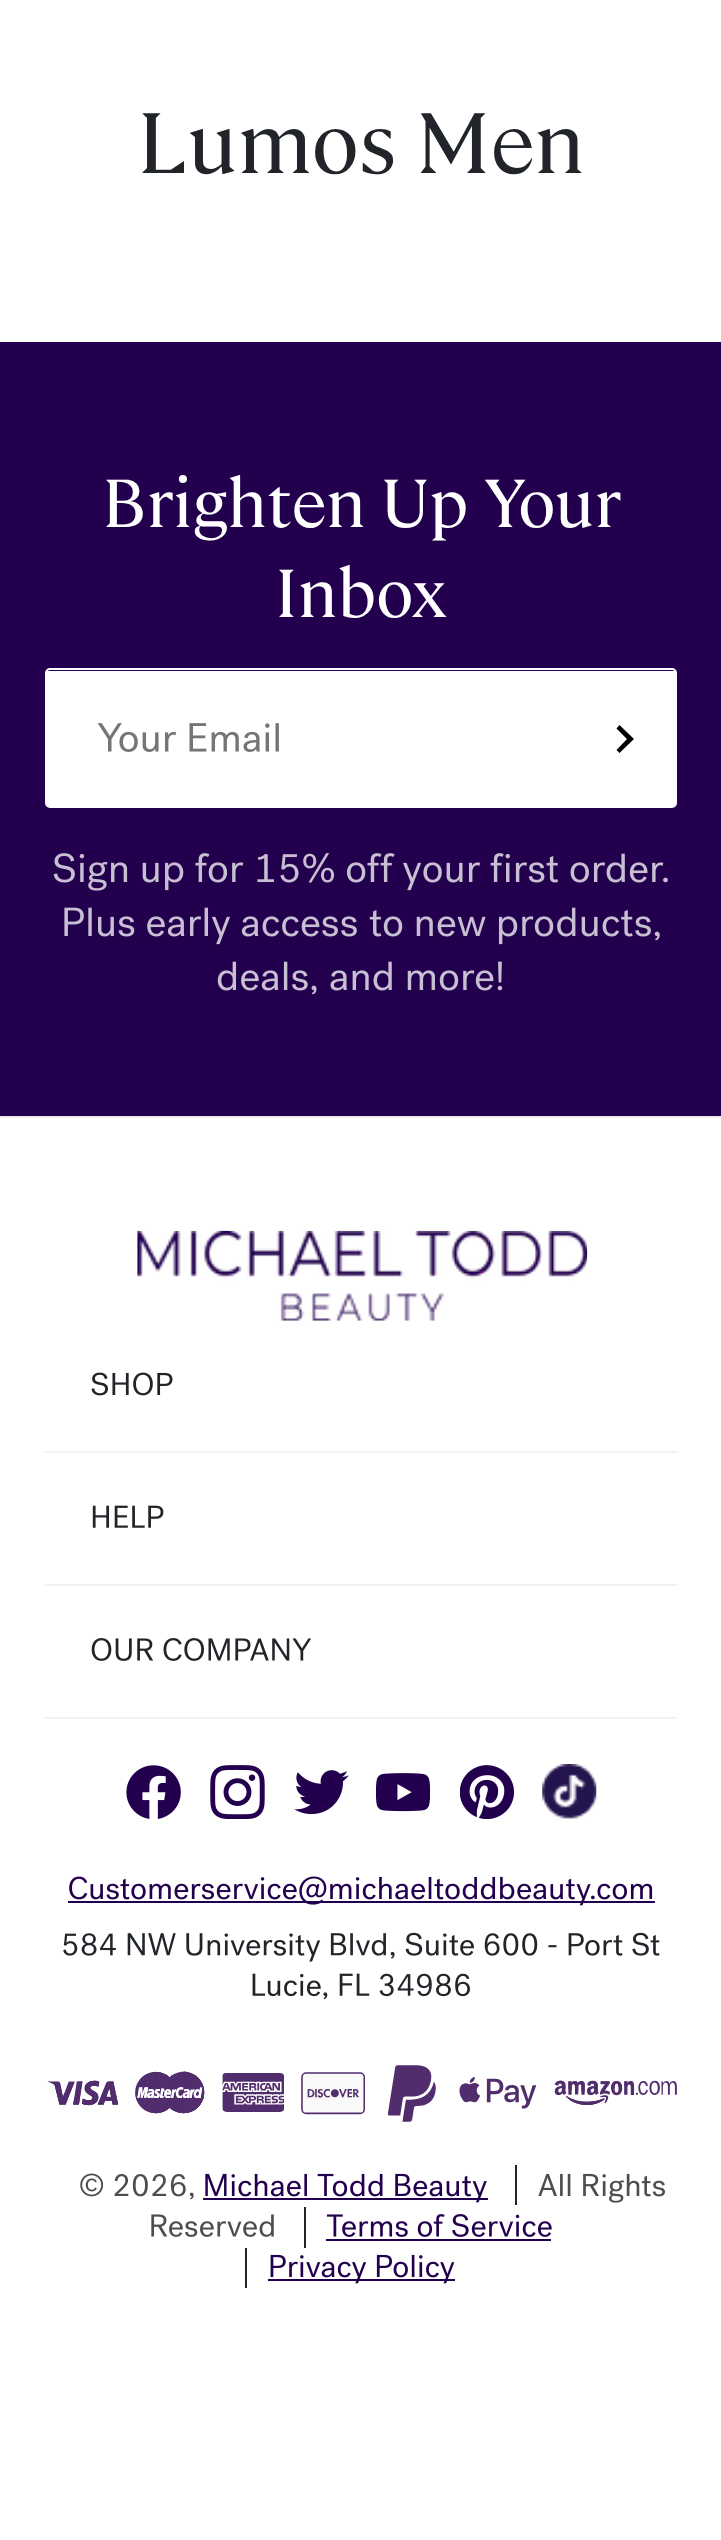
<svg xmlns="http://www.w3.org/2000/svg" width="721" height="2540">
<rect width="100%" height="100%" fill="#fff"/>
<text x="137" y="173" style="font-family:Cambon;font-size:85.5px;fill:#212529">Lumos Men</text>
<rect y="342" width="721" height="774" fill="#23004e"/>
<text x="102" y="527" style="font-family:Cambon;font-size:67.5px;fill:#fff">Brighten Up Your</text>
<text x="275" y="617" style="font-family:Cambon;font-size:67.5px;fill:#fff">Inbox</text>
<rect x="46" y="669" width="630" height="138" rx="4" fill="none" stroke="#fff" stroke-width="2"/>
<rect x="47" y="671" width="628" height="135" fill="#fff"/>
<image x="97" y="723" width="182" height="29" href="media/1.png"/>
<path d="M619.5 725l-3 3.5l10.5 10.5l-10.5 11l3 3l14.5-14z" fill="#000"/>
<image x="53" y="853" width="615" height="38" href="media/2.png"/>
<image x="64" y="907" width="293" height="38" href="media/3.png"/>
<image x="369" y="907" width="291" height="38" href="media/4.png"/>
<image x="217" y="961" width="286" height="34" href="media/5.png"/>
<rect y="1116" width="721" height="2" fill="#ececec"/>
<image x="137" y="1230" width="451" height="91" href="media/6.png"/>
<rect x="45" y="1451" width="632" height="2" fill="#f2f2f2"/>
<image x="91" y="1372" width="82" height="24" href="media/7.png"/>
<rect x="45" y="1584" width="632" height="2" fill="#f2f2f2"/>
<image x="92" y="1505" width="72" height="23" href="media/8.png"/>
<rect x="45" y="1717" width="632" height="2" fill="#f2f2f2"/>
<image x="91" y="1638" width="221" height="23" href="media/9.png"/>
<image x="126" y="1765" width="55" height="54" href="media/10.png"/>
<image x="210" y="1765" width="55" height="54" href="media/11.png"/>
<image x="294" y="1770" width="55" height="45" href="media/12.png"/>
<image x="376" y="1773" width="54" height="39" href="media/13.png"/>
<image x="460" y="1765" width="54" height="54" href="media/14.png"/>
<image x="542" y="1764" width="55" height="55" href="media/15.png"/>
<rect x="68" y="1901" width="587" height="2" fill="#23004e"/>
<image x="69" y="1876" width="584" height="30" href="media/16.png"/>
<image x="63" y="1932" width="597" height="30" href="media/17.png"/>
<image x="252" y="1973" width="218" height="27" href="media/18.png"/>
<image x="47" y="2065" width="630" height="57" href="media/19.png"/>
<image x="80" y="2173" width="114" height="27" href="media/20.png"/>
<rect x="515" y="2165" width="2" height="40" fill="#212529"/>
<image x="538" y="2173" width="127" height="30" href="media/21.png"/>
<image x="151" y="2214" width="123" height="23" href="media/22.png"/>
<rect x="203" y="2198" width="285" height="2" fill="#23004e"/>
<image x="205" y="2173" width="282" height="30" href="media/23.png"/>
<rect x="304" y="2207" width="2" height="41" fill="#212529"/>
<image x="326" y="2214" width="226" height="23" href="media/24.png"/>
<rect x="326" y="2239" width="225" height="2" fill="#23004e"/>
<rect x="245" y="2248" width="2" height="40" fill="#212529"/>
<rect x="268" y="2279" width="187" height="2" fill="#23004e"/>
<image x="270" y="2254" width="185" height="30" href="media/25.png"/>
</svg>
